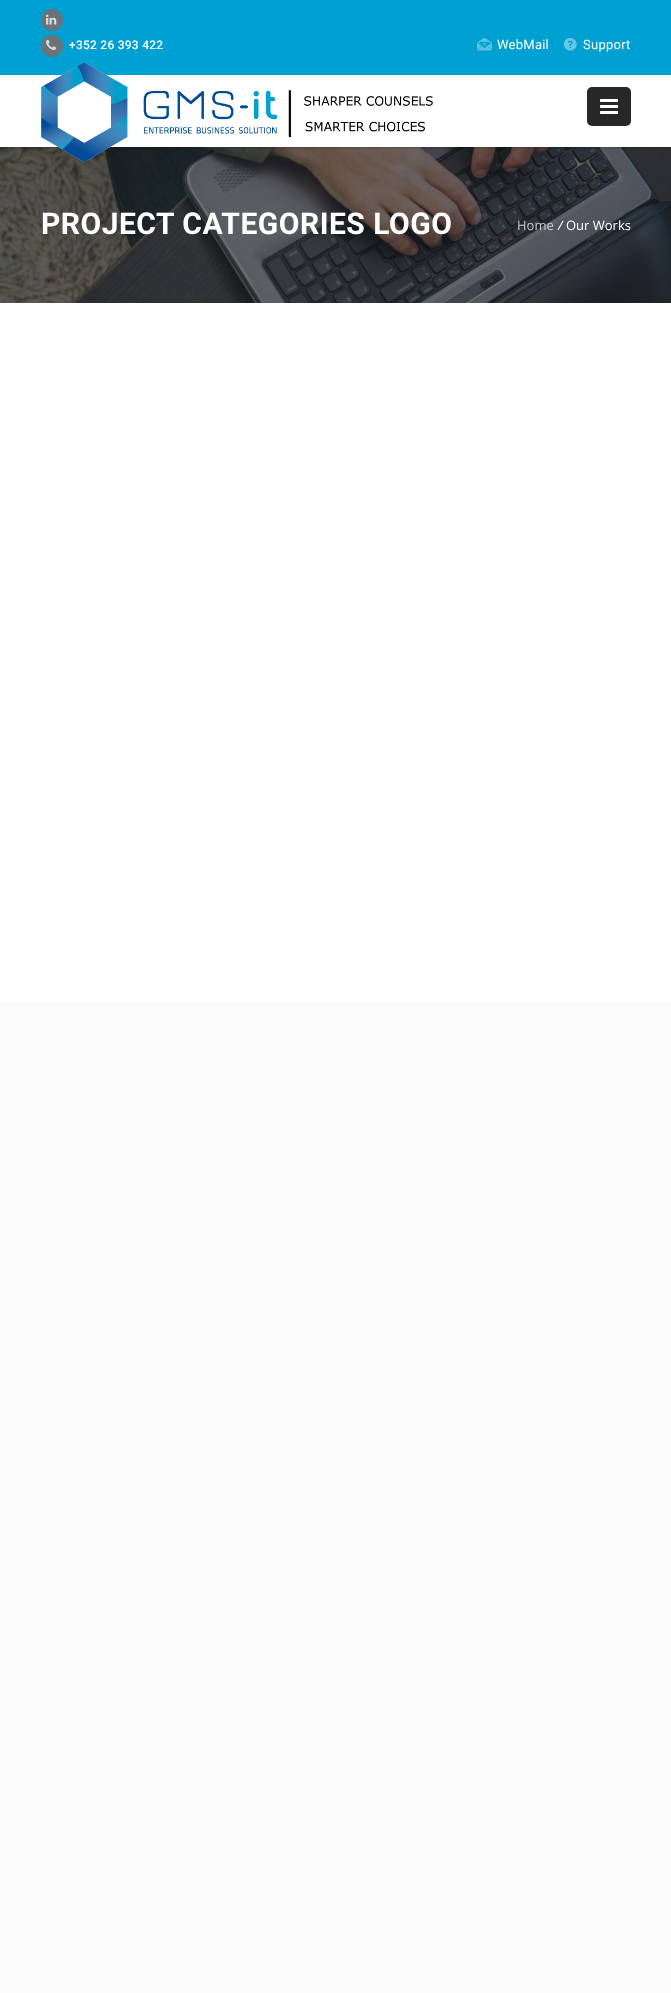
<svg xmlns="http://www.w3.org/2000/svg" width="671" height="1993">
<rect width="100%" height="100%" fill="#fafafa"/>
<rect width="671" height="75" fill="#00a0d2"/>
<circle cx="52" cy="20" r="11" fill="#6a7379"/>
<image x="46" y="14" width="11" height="11" href="media/1.png"/>
<circle cx="52" cy="46" r="11" fill="#6a7379"/>
<image x="46" y="39" width="11" height="11" href="media/2.png"/>
<text x="69" y="49" style="font-family:Roboto;font-size:12px;font-weight:500;letter-spacing:0.25px;fill:#fff">+352 26 393 422</text>
<image x="477" y="38" width="15" height="13" href="media/3.png"/>
<text x="497" y="49" style="font-family:Roboto;font-size:13px;letter-spacing:0.25px;fill:#fff">WebMail</text>
<image x="563" y="38" width="14" height="13" href="media/4.png"/>
<text x="583" y="49" style="font-family:Roboto;font-size:13px;letter-spacing:0.25px;fill:#fff">Support</text>
<image x="0" y="147" width="671" height="156" href="media/7.png"/>
<rect y="78" width="671" height="70" fill="#00000033" filter="blur(1px)"/>
<rect y="77" width="671" height="70" fill="#fff"/>
<image x="41" y="62" width="392" height="100" href="media/5.png"/>
<rect x="587" y="87" width="44" height="39" rx="5" fill="#272727"/>
<image x="600" y="99" width="18" height="15" href="media/6.png"/>
<text x="41" y="234" style="font-family:Roboto;font-size:30px;font-weight:bold;letter-spacing:0.5px;fill:#fff">PROJECT CATEGORIES LOGO</text>
<text x="517" y="230" style="font-family:Open Sans;font-size:13px;fill:#ccc">Home</text>
<text x="558" y="230" style="font-family:Open Sans;font-size:13px;font-style:italic;fill:#fff">/</text>
<text x="566" y="230" style="font-family:Open Sans;font-size:13px;fill:#fff">Our Works</text>
<rect y="303" width="671" height="700" fill="#fff"/>
</svg>
